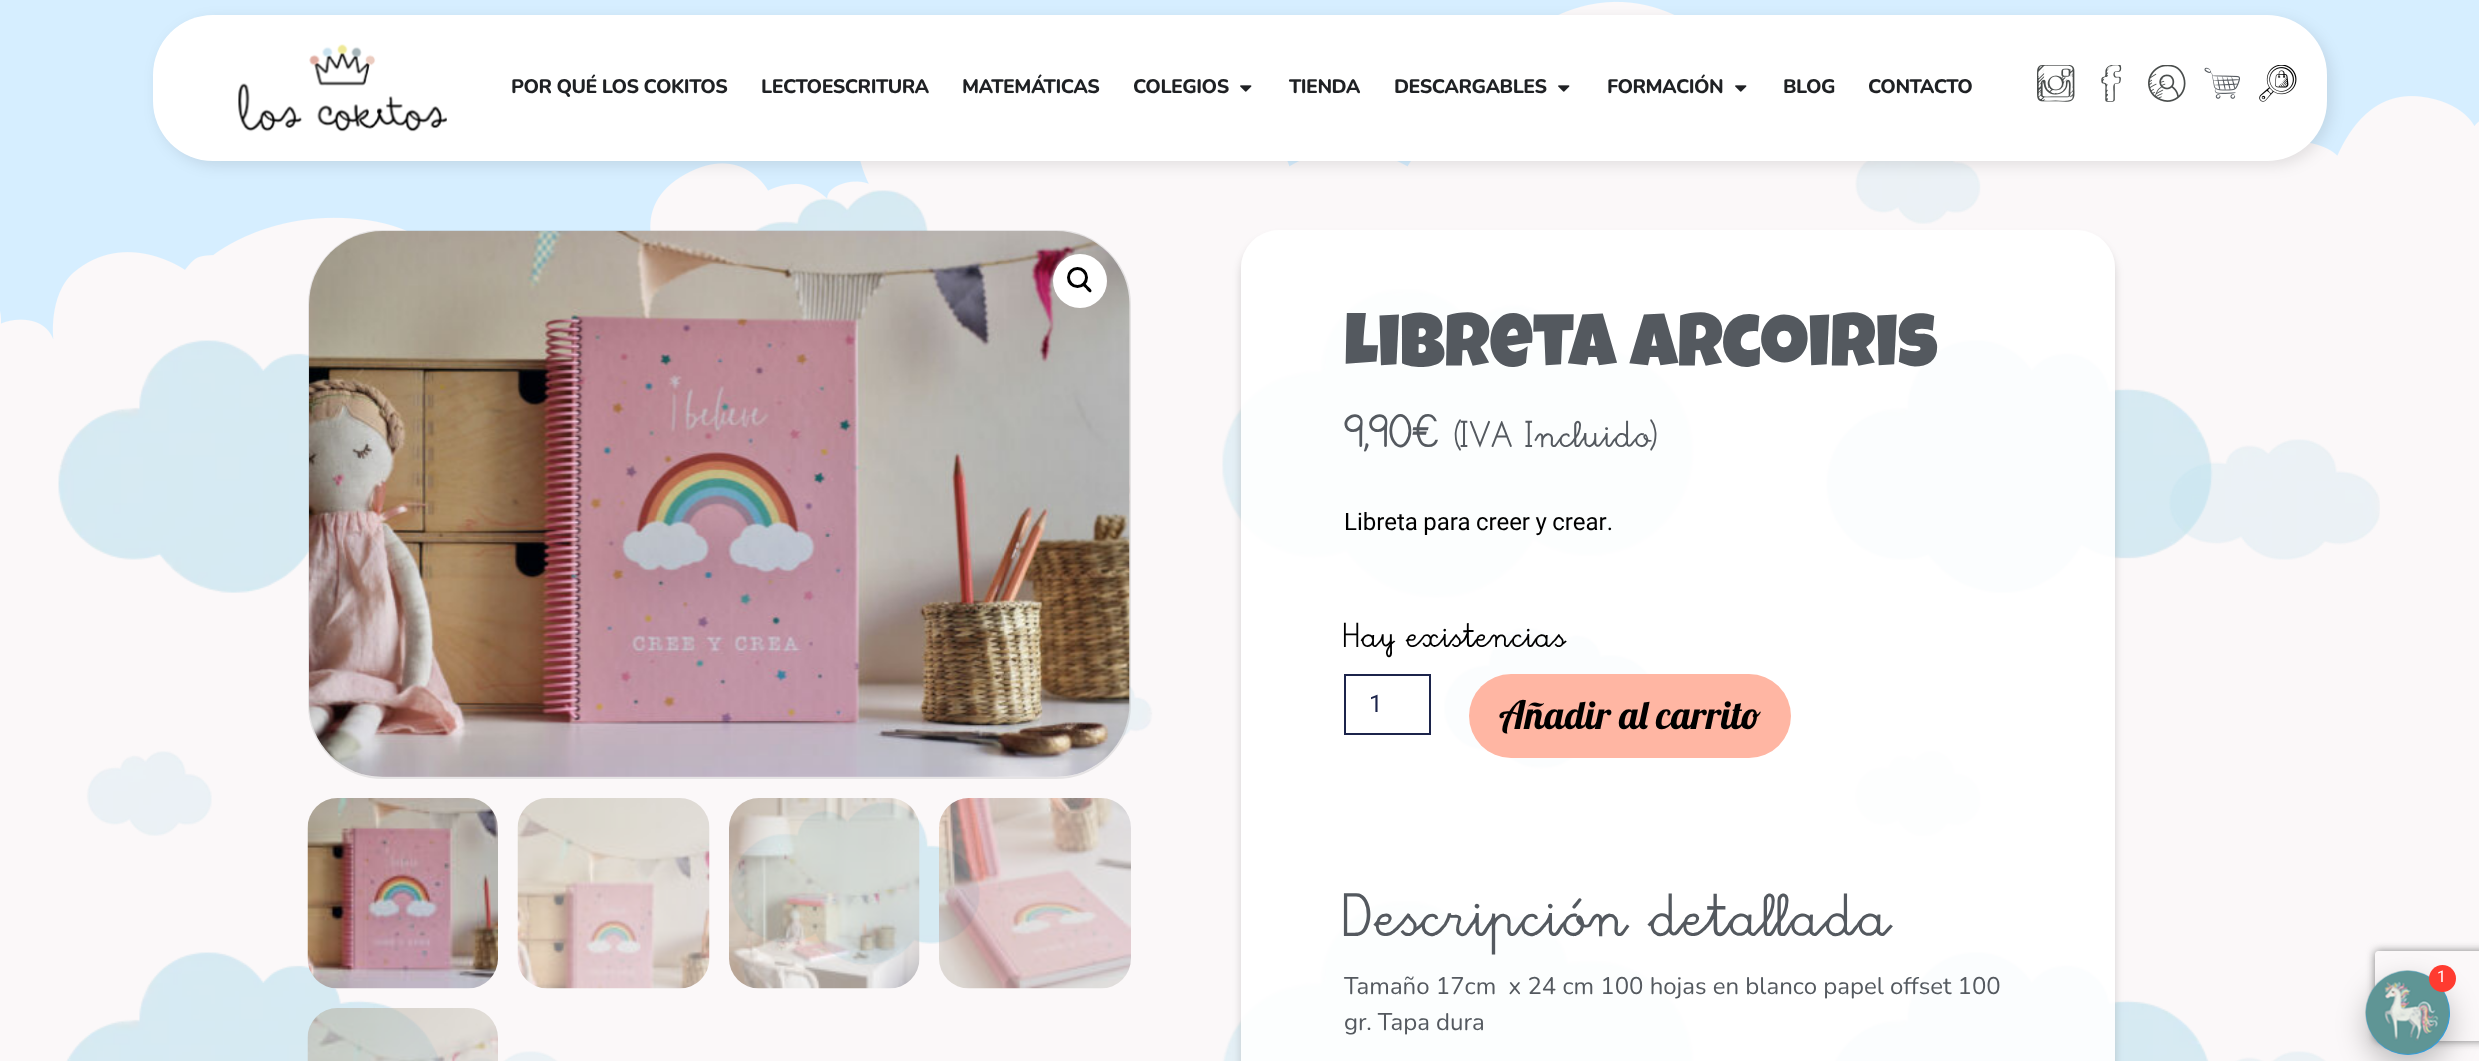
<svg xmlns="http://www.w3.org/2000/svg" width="2479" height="1061">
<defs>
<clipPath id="clip1"><path d="M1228 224h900v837h-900zm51 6h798c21 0 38 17 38 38v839c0 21-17 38-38 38h-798c-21 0-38-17-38-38v-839c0-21 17-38 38-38z" clip-rule="evenodd"/></clipPath>
<clipPath id="clip2"><path d="M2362 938h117v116h-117zm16 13h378c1.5 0 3 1.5 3 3v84c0 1.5-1.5 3-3 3h-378c-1.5 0-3-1.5-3-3v-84c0-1.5 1.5-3 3-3z" clip-rule="evenodd"/></clipPath>
</defs>
<rect width="100%" height="100%" fill="#fbf8f9"/>
<image x="58" y="161" width="2322" height="900" href="media/8.png"/>
<image x="0" y="0" width="2479" height="339" href="media/9.png"/>
<rect x="158" y="20" width="2173" height="145" rx="60" fill="#0000001a" filter="blur(7.5px)"/>
<rect x="153" y="15" width="2174" height="146" rx="60" fill="#fff"/>
<image x="238" y="44" width="209" height="88" href="media/1.png"/>
<text x="511" y="93" style="font-family:Nunito;font-size:19.5px;font-weight:800;letter-spacing:-0.5px;fill:#1f2124">POR QUÉ LOS COKITOS</text>
<text x="761" y="93" style="font-family:Nunito;font-size:19.5px;font-weight:800;letter-spacing:-0.5px;fill:#1f2124">LECTOESCRITURA</text>
<text x="962" y="93" style="font-family:Nunito;font-size:19.5px;font-weight:800;letter-spacing:-0.5px;fill:#1f2124">MATEMÁTICAS</text>
<text x="1133" y="93" style="font-family:Nunito;font-size:19.5px;font-weight:800;letter-spacing:-0.5px;fill:#1f2124">COLEGIOS</text>
<image x="1240" y="85" width="12" height="7" href="media/2.png"/>
<text x="1289" y="93" style="font-family:Nunito;font-size:19.5px;font-weight:800;letter-spacing:-0.5px;fill:#1f2124">TIENDA</text>
<text x="1394" y="93" style="font-family:Nunito;font-size:19.5px;font-weight:800;letter-spacing:-0.5px;fill:#1f2124">DESCARGABLES</text>
<image x="1558" y="85" width="12" height="7" href="media/2.png"/>
<text x="1607" y="93" style="font-family:Nunito;font-size:19.5px;font-weight:800;letter-spacing:-0.5px;fill:#1f2124">FORMACIÓN</text>
<image x="1735" y="85" width="12" height="7" href="media/2.png"/>
<text x="1783" y="93" style="font-family:Nunito;font-size:19.5px;font-weight:800;letter-spacing:-0.5px;fill:#1f2124">BLOG</text>
<text x="1868" y="93" style="font-family:Nunito;font-size:19.5px;font-weight:800;letter-spacing:-0.5px;fill:#1f2124">CONTACTO</text>
<image x="2037" y="65" width="38" height="37" href="media/3.png"/>
<image x="2101" y="65" width="21" height="37" href="media/4.png"/>
<image x="2148" y="65" width="38" height="37" href="media/5.png"/>
<image x="2204" y="67" width="36" height="32" href="media/6.png"/>
<image x="2259" y="65" width="38" height="37" href="media/7.png"/>
<rect x="309" y="231" width="821" height="547" rx="74" fill="none" stroke="#7a7a7a2b" stroke-width="2"/>
<image x="1129" y="298" width="1" height="413" href="media/11.png"/>
<image x="309" y="231" width="821" height="546" href="media/10.png"/>
<circle cx="1080" cy="281" r="27" fill="#fff"/>
<circle cx="1077.5" cy="277.5" r="9" fill="none" stroke="#000" stroke-width="3"/>
<path d="M1082.5 283.5c2-2 4.5 2 5.5 3c1 1 5 3.5 3 5.5c-1.5 1.5-4.5-2.5-5-3.5c-1-1-5-3.5-3.5-5z" fill="#000"/>
<image x="307" y="798" width="191" height="191" href="media/12.png"/>
<image x="517" y="798" width="193" height="191" href="media/13.png"/>
<image x="729" y="798" width="191" height="191" href="media/14.png"/>
<image x="939" y="798" width="192" height="191" href="media/15.png"/>
<image x="307" y="1008" width="191" height="53" href="media/16.png"/>
<g clip-path="url(#clip1)">
<rect x="1241" y="237" width="874" height="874" rx="38" fill="#00000029" filter="blur(4px)"/>
</g>
<rect x="1241" y="230" width="874" height="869" rx="38" fill="#ffffffe3"/>
<text x="1344" y="366" style="font-family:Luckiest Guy;font-size:75px;fill:#54595f">Libreta Arcoiris</text>
<text x="1344" y="447" style="font-family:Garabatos;font-size:30px;font-weight:bold;fill:#54595f">9,90€</text>
<text x="1455" y="447" style="font-family:Garabatos;font-size:24px;font-weight:bold;fill:#54595f">(IVA Incluido)</text>
<text x="1344" y="530" word-spacing="-0.5" style="font-family:Roboto;font-size:24px;fill:#000">Libreta para creer y crear.</text>
<text x="1344" y="647" style="font-family:Garabatos;font-size:22px;font-weight:bold;fill:#000">Hay existencias</text>
<rect x="1345" y="675" width="85" height="59" fill="none" stroke="#1c244b" stroke-width="2"/>
<text x="1369" y="712" style="font-family:Roboto;font-size:24px;fill:#1c244b">1</text>
<rect x="1469" y="674" width="322" height="84" rx="42" fill="#ffb6a3"/>
<text x="1499" y="729" style="font-family:Lobster;font-size:39px;fill:#000">Añadir al carrito</text>
<text x="1344" y="936" style="font-family:Garabatos;font-size:39px;font-weight:bold;fill:#54595f">Descripción detallada</text>
<text x="1344" y="994" style="font-family:Nunito;font-size:24px;fill:#54595f" xml:space="preserve">Tamaño 17cm  x 24 cm 100 hojas en blanco papel offset 100</text>
<text x="1344" y="1030" style="font-family:Nunito;font-size:24px;fill:#54595f">gr. Tapa dura</text>
<g clip-path="url(#clip2)">
<rect x="2375" y="951" width="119" height="90" rx="3" fill="#808080" filter="blur(4px)"/>
</g>
<rect x="2366" y="983" width="84" height="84" rx="42" fill="#00000040" filter="blur(15px)"/>
<circle cx="2408" cy="1013" r="42" fill="#23a2fc"/>
<image x="2365" y="970" width="85" height="85" href="media/17.png"/>
<circle cx="2442.5" cy="978.5" r="13.5" fill="#ff3b30"/>
<text x="2437" y="982" style="font-family:Roboto;font-size:16px;fill:#fff">1</text>
</svg>
